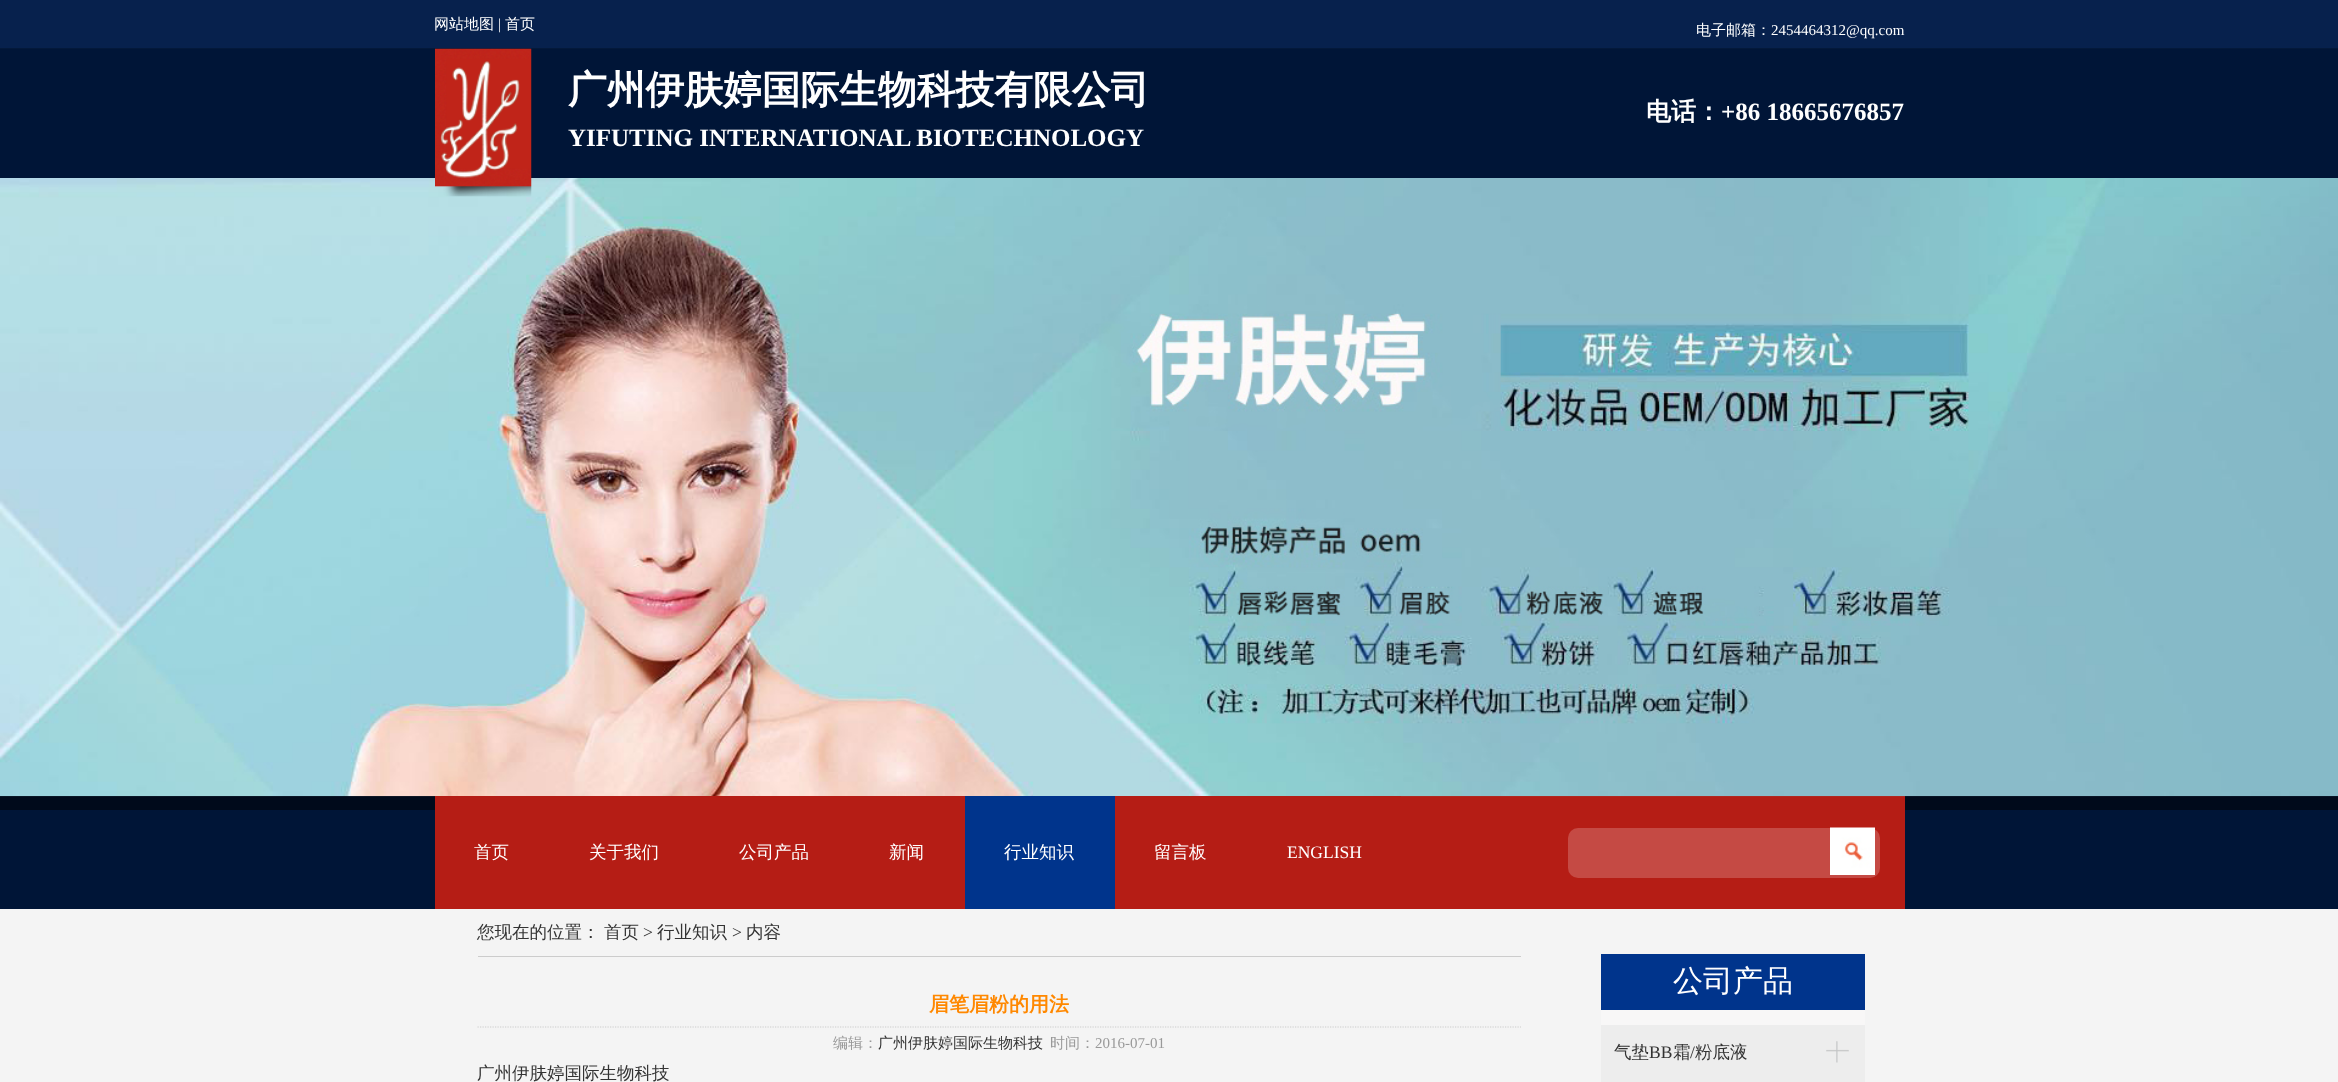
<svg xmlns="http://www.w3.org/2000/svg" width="2338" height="1082">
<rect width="100%" height="100%" fill="#001537"/>
<rect width="2338" height="48" fill="#07214d"/>
<text x="434" y="29" style="font-family:WenQuanYi Zen Hei;font-size:15px;font-weight:500;fill:#fff">网站地图</text>
<text x="498" y="29" style="font-family:Liberation Serif;font-size:15px;fill:#fff">|</text>
<text x="505" y="29" style="font-family:WenQuanYi Zen Hei;font-size:15px;font-weight:500;fill:#fff">首页</text>
<text x="1696" y="35" style="font-family:WenQuanYi Zen Hei;font-size:15px;font-weight:500;fill:#fff">电子邮箱：</text>
<text x="1771" y="35" style="font-family:Liberation Serif;font-size:15px;fill:#fff">2454464312@qq.com</text>
<rect y="48" width="2338" height="1" fill="#04193a"/>
<rect y="796" width="2338" height="14" fill="#000a1b"/>
<rect x="1401" y="796" width="504" height="113" fill="#b51d15"/>
<image x="0" y="178" width="2338" height="619" href="media/3.png"/>
<image x="435" y="48" width="97" height="149" href="media/1.png"/>
<image x="440" y="61" width="80" height="117" href="media/2.png"/>
<text x="568" y="103" style="font-family:WenQuanYi Zen Hei;font-size:38.75px;font-weight:bold;fill:#fff">广州伊肤婷国际生物科技有限公司</text>
<text x="568" y="146" style="font-family:Liberation Serif;font-size:25px;font-weight:bold;fill:#fff">YIFUTING INTERNATIONAL BIOTECHNOLOGY</text>
<text x="1646" y="120" style="font-family:WenQuanYi Zen Hei;font-size:25px;font-weight:bold;fill:#fff">电话：</text>
<text x="1721" y="120" style="font-family:Liberation Serif;font-size:25px;font-weight:bold;fill:#fff">+86 18665676857</text>
<rect x="435" y="796" width="530" height="113" fill="#b51d15"/>
<text x="474" y="858" style="font-family:WenQuanYi Zen Hei;font-size:17.5px;font-weight:500;fill:#fff">首页</text>
<text x="589" y="858" style="font-family:WenQuanYi Zen Hei;font-size:17.5px;font-weight:500;fill:#fff">关于我们</text>
<text x="739" y="858" style="font-family:WenQuanYi Zen Hei;font-size:17.5px;font-weight:500;fill:#fff">公司产品</text>
<text x="889" y="858" style="font-family:WenQuanYi Zen Hei;font-size:17.5px;font-weight:500;fill:#fff">新闻</text>
<rect x="965" y="796" width="150" height="113" fill="#00348c"/>
<text x="1004" y="858" style="font-family:WenQuanYi Zen Hei;font-size:17.5px;font-weight:500;fill:#fff">行业知识</text>
<rect x="1115" y="796" width="286" height="113" fill="#b51d15"/>
<text x="1154" y="858" style="font-family:WenQuanYi Zen Hei;font-size:17.5px;font-weight:500;fill:#fff">留言板</text>
<text x="1287" y="858" style="font-family:Liberation Serif;font-size:17.5px;fill:#fff">ENGLISH</text>
<rect x="1568" y="828" width="312" height="50" rx="10" fill="#c54a44"/>
<image x="1830" y="827" width="45" height="48" href="media/4.png"/>
<rect y="909" width="2338" height="173" fill="#f4f4f4"/>
<rect x="478" y="956" width="1043" height="1" fill="#ccc"/>
<text x="477" y="938" style="font-family:WenQuanYi Zen Hei;font-size:17.5px;font-weight:500;fill:#333">您现在的位置：</text>
<text x="604" y="938" style="font-family:WenQuanYi Zen Hei;font-size:17.5px;font-weight:500;fill:#333">首页</text>
<text x="643" y="938" style="font-family:Liberation Serif;font-size:17.5px;fill:#333">&gt;</text>
<text x="657" y="938" style="font-family:WenQuanYi Zen Hei;font-size:17.5px;font-weight:500;fill:#333">行业知识</text>
<text x="732" y="938" style="font-family:Liberation Serif;font-size:17.5px;fill:#333">&gt;</text>
<text x="746" y="938" style="font-family:WenQuanYi Zen Hei;font-size:17.5px;font-weight:500;fill:#333">内容</text>
<path d="M477.5 1027h1043.5" fill="none" stroke="#ccc" stroke-width="1.2" stroke-dasharray="1.25 1.25"/>
<text x="929" y="1011" style="font-family:WenQuanYi Zen Hei;font-size:20px;font-weight:bold;fill:#f80">眉笔眉粉的用法</text>
<text x="833" y="1048" style="font-family:WenQuanYi Zen Hei;font-size:15px;font-weight:500;fill:#999">编辑：</text>
<text x="878" y="1048" style="font-family:WenQuanYi Zen Hei;font-size:15px;font-weight:500;fill:#333">广州伊肤婷国际生物科技</text>
<text x="1050" y="1048" style="font-family:WenQuanYi Zen Hei;font-size:15px;font-weight:500;fill:#999">时间：</text>
<text x="1095" y="1048" style="font-family:Liberation Serif;font-size:15px;fill:#999">2016-07-01</text>
<text x="477" y="1079" style="font-family:WenQuanYi Zen Hei;font-size:17.5px;font-weight:500;fill:#333">广州伊肤婷国际生物科技</text>
<rect x="1601" y="954" width="264" height="56" fill="#00348c"/>
<text x="1673" y="991" style="font-family:WenQuanYi Zen Hei;font-size:30px;font-weight:500;fill:#fff">公司产品</text>
<rect x="1601" y="1010" width="264" height="15" fill="#f8f7f7"/>
<rect x="1601" y="1025" width="264" height="57" fill="#ededed"/>
<image x="1826" y="1041" width="23" height="22" href="media/5.png"/>
<text x="1614" y="1058" style="font-family:WenQuanYi Zen Hei;font-size:17.5px;font-weight:500;fill:#333">气垫</text>
<text x="1649" y="1058" style="font-family:Liberation Serif;font-size:17.5px;fill:#333">BB</text>
<text x="1673" y="1058" style="font-family:WenQuanYi Zen Hei;font-size:17.5px;font-weight:500;fill:#333">霜</text>
<text x="1690" y="1058" style="font-family:Liberation Serif;font-size:17.5px;fill:#333">/</text>
<text x="1695" y="1058" style="font-family:WenQuanYi Zen Hei;font-size:17.5px;font-weight:500;fill:#333">粉底液</text>
</svg>
